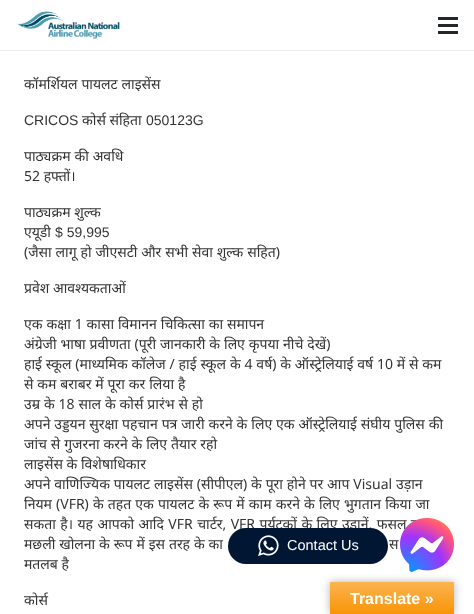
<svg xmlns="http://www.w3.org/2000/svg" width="474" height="614">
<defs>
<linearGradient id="g1" gradientUnits="userSpaceOnUse" x1="392" y1="582" x2="392" y2="614"><stop offset="0" stop-color="#fbb450"/><stop offset="1" stop-color="#f89406"/></linearGradient>
</defs>
<rect width="100%" height="100%" fill="#fff"/>
<rect y="50" width="474" height="1" fill="#ebebeb"/>
<image x="17" y="11" width="103" height="28" href="media/1.png"/>
<rect x="438" y="24" width="20" height="3" fill="#25282b"/>
<rect x="438" y="17" width="20" height="3" fill="#25282b"/>
<rect x="438" y="31" width="20" height="3" fill="#25282b"/>
<text x="24" y="89" word-spacing="0.25" style="font-family:Noto Sans;font-size:14px;fill:#333">कॉमर्शियल पायलट लाइसेंस</text>
<text x="24" y="125" style="font-family:Liberation Sans;font-size:14px;fill:#333">CRICOS</text>
<text x="82" y="125" style="font-family:Noto Sans;font-size:14px;fill:#333">कोर्स संहिता</text>
<text x="146" y="125" style="font-family:Liberation Sans;font-size:14px;fill:#333">050123G</text>
<text x="24" y="161" word-spacing="0.25" style="font-family:Noto Sans;font-size:14px;fill:#333">पाठ्यक्रम की अवधि</text>
<text x="24" y="181" style="font-family:Noto Sans;font-size:14px;fill:#333">52 हफ्तों।</text>
<text x="24" y="217" style="font-family:Noto Sans;font-size:14px;fill:#333">पाठ्यक्रम शुल्क</text>
<text x="24" y="237" style="font-family:Noto Sans;font-size:14px;fill:#333">एयूडी</text>
<text x="55" y="237" style="font-family:Liberation Sans;font-size:14px;fill:#333">$ 59,995</text>
<text x="24" y="257" word-spacing="0.25" style="font-family:Noto Sans;font-size:14px;fill:#333">(जैसा लागू हो जीएसटी और सभी सेवा शुल्क सहित)</text>
<text x="24" y="293" style="font-family:Noto Sans;font-size:14px;fill:#333">प्रवेश आवश्यकताओं</text>
<text x="24" y="329" word-spacing="0.25" style="font-family:Noto Sans;font-size:14px;fill:#333">एक कक्षा 1 कासा विमानन चिकित्सा का समापन</text>
<text x="24" y="349" word-spacing="0.25" style="font-family:Noto Sans;font-size:14px;fill:#333">अंग्रेजी भाषा प्रवीणता (पूरी जानकारी के लिए कृपया नीचे देखें)</text>
<text x="24" y="369" word-spacing="0.2" style="font-family:Noto Sans;font-size:14px;fill:#333">हाई स्कूल (माध्यमिक कॉलेज / हाई स्कूल के 4 वर्ष) के ऑस्ट्रेलियाई वर्ष 10 में से कम</text>
<text x="24" y="389" word-spacing="0.25" style="font-family:Noto Sans;font-size:14px;fill:#333">से कम बराबर में पूरा कर लिया है</text>
<text x="24" y="409" word-spacing="0.25" style="font-family:Noto Sans;font-size:14px;fill:#333">उम्र के 18 साल के कोर्स प्रारंभ से हो</text>
<text x="24" y="429" word-spacing="0.25" style="font-family:Noto Sans;font-size:14px;fill:#333">अपने उड्डयन सुरक्षा पहचान पत्र जारी करने के लिए एक ऑस्ट्रेलियाई संघीय पुलिस की</text>
<text x="24" y="449" word-spacing="0.25" style="font-family:Noto Sans;font-size:14px;fill:#333">जांच से गुजरना करने के लिए तैयार रहो</text>
<text x="24" y="469" style="font-family:Noto Sans;font-size:14px;fill:#333">लाइसेंस के विशेषाधिकार</text>
<text x="24" y="489" word-spacing="0.25" style="font-family:Noto Sans;font-size:14px;fill:#333">अपने वाणिज्यिक पायलट लाइसेंस (सीपीएल) के पूरा होने पर आप Visual उड़ान</text>
<text x="24" y="509" word-spacing="0.5" style="font-family:Noto Sans;font-size:14px;fill:#333">नियम (VFR) के तहत एक पायलट के रूप में काम करने के लिए भुगतान किया जा</text>
<text x="24" y="529" word-spacing="0.8" style="font-family:Noto Sans;font-size:14px;fill:#333">सकता है। यह आपको आदि VFR चार्टर, VFR पर्यटकों के लिए उड़ानें, फसल ठ</text>
<text x="24" y="549" word-spacing="0.25" style="font-family:Noto Sans;font-size:14px;fill:#333">मछली खोलना के रूप में इस तरह के का</text>
<text x="389" y="549" word-spacing="0.25" style="font-family:Noto Sans;font-size:14px;fill:#333">स</text>
<text x="24" y="569" style="font-family:Noto Sans;font-size:14px;fill:#333">मतलब है</text>
<text x="24" y="605" style="font-family:Noto Sans;font-size:14px;fill:#333">कोर्स</text>
<rect x="228" y="528" width="160" height="36" rx="18" fill="#001633"/>
<image x="258" y="535" width="21" height="21" href="media/2.png"/>
<text x="287" y="550" style="font-family:Liberation Sans;font-size:14.5px;fill:#fff">Contact Us</text>
<image x="400" y="518" width="54" height="54" href="media/3.png"/>
<rect x="330" y="582" width="124" height="32" fill="#0000004d" filter="blur(4.5px)"/>
<rect x="330" y="582" width="124" height="32" fill="url(#g1)"/>
<text x="350" y="604" style="font-family:Liberation Sans;font-size:16px;font-weight:bold;fill:#fff">Translate »</text>
</svg>
